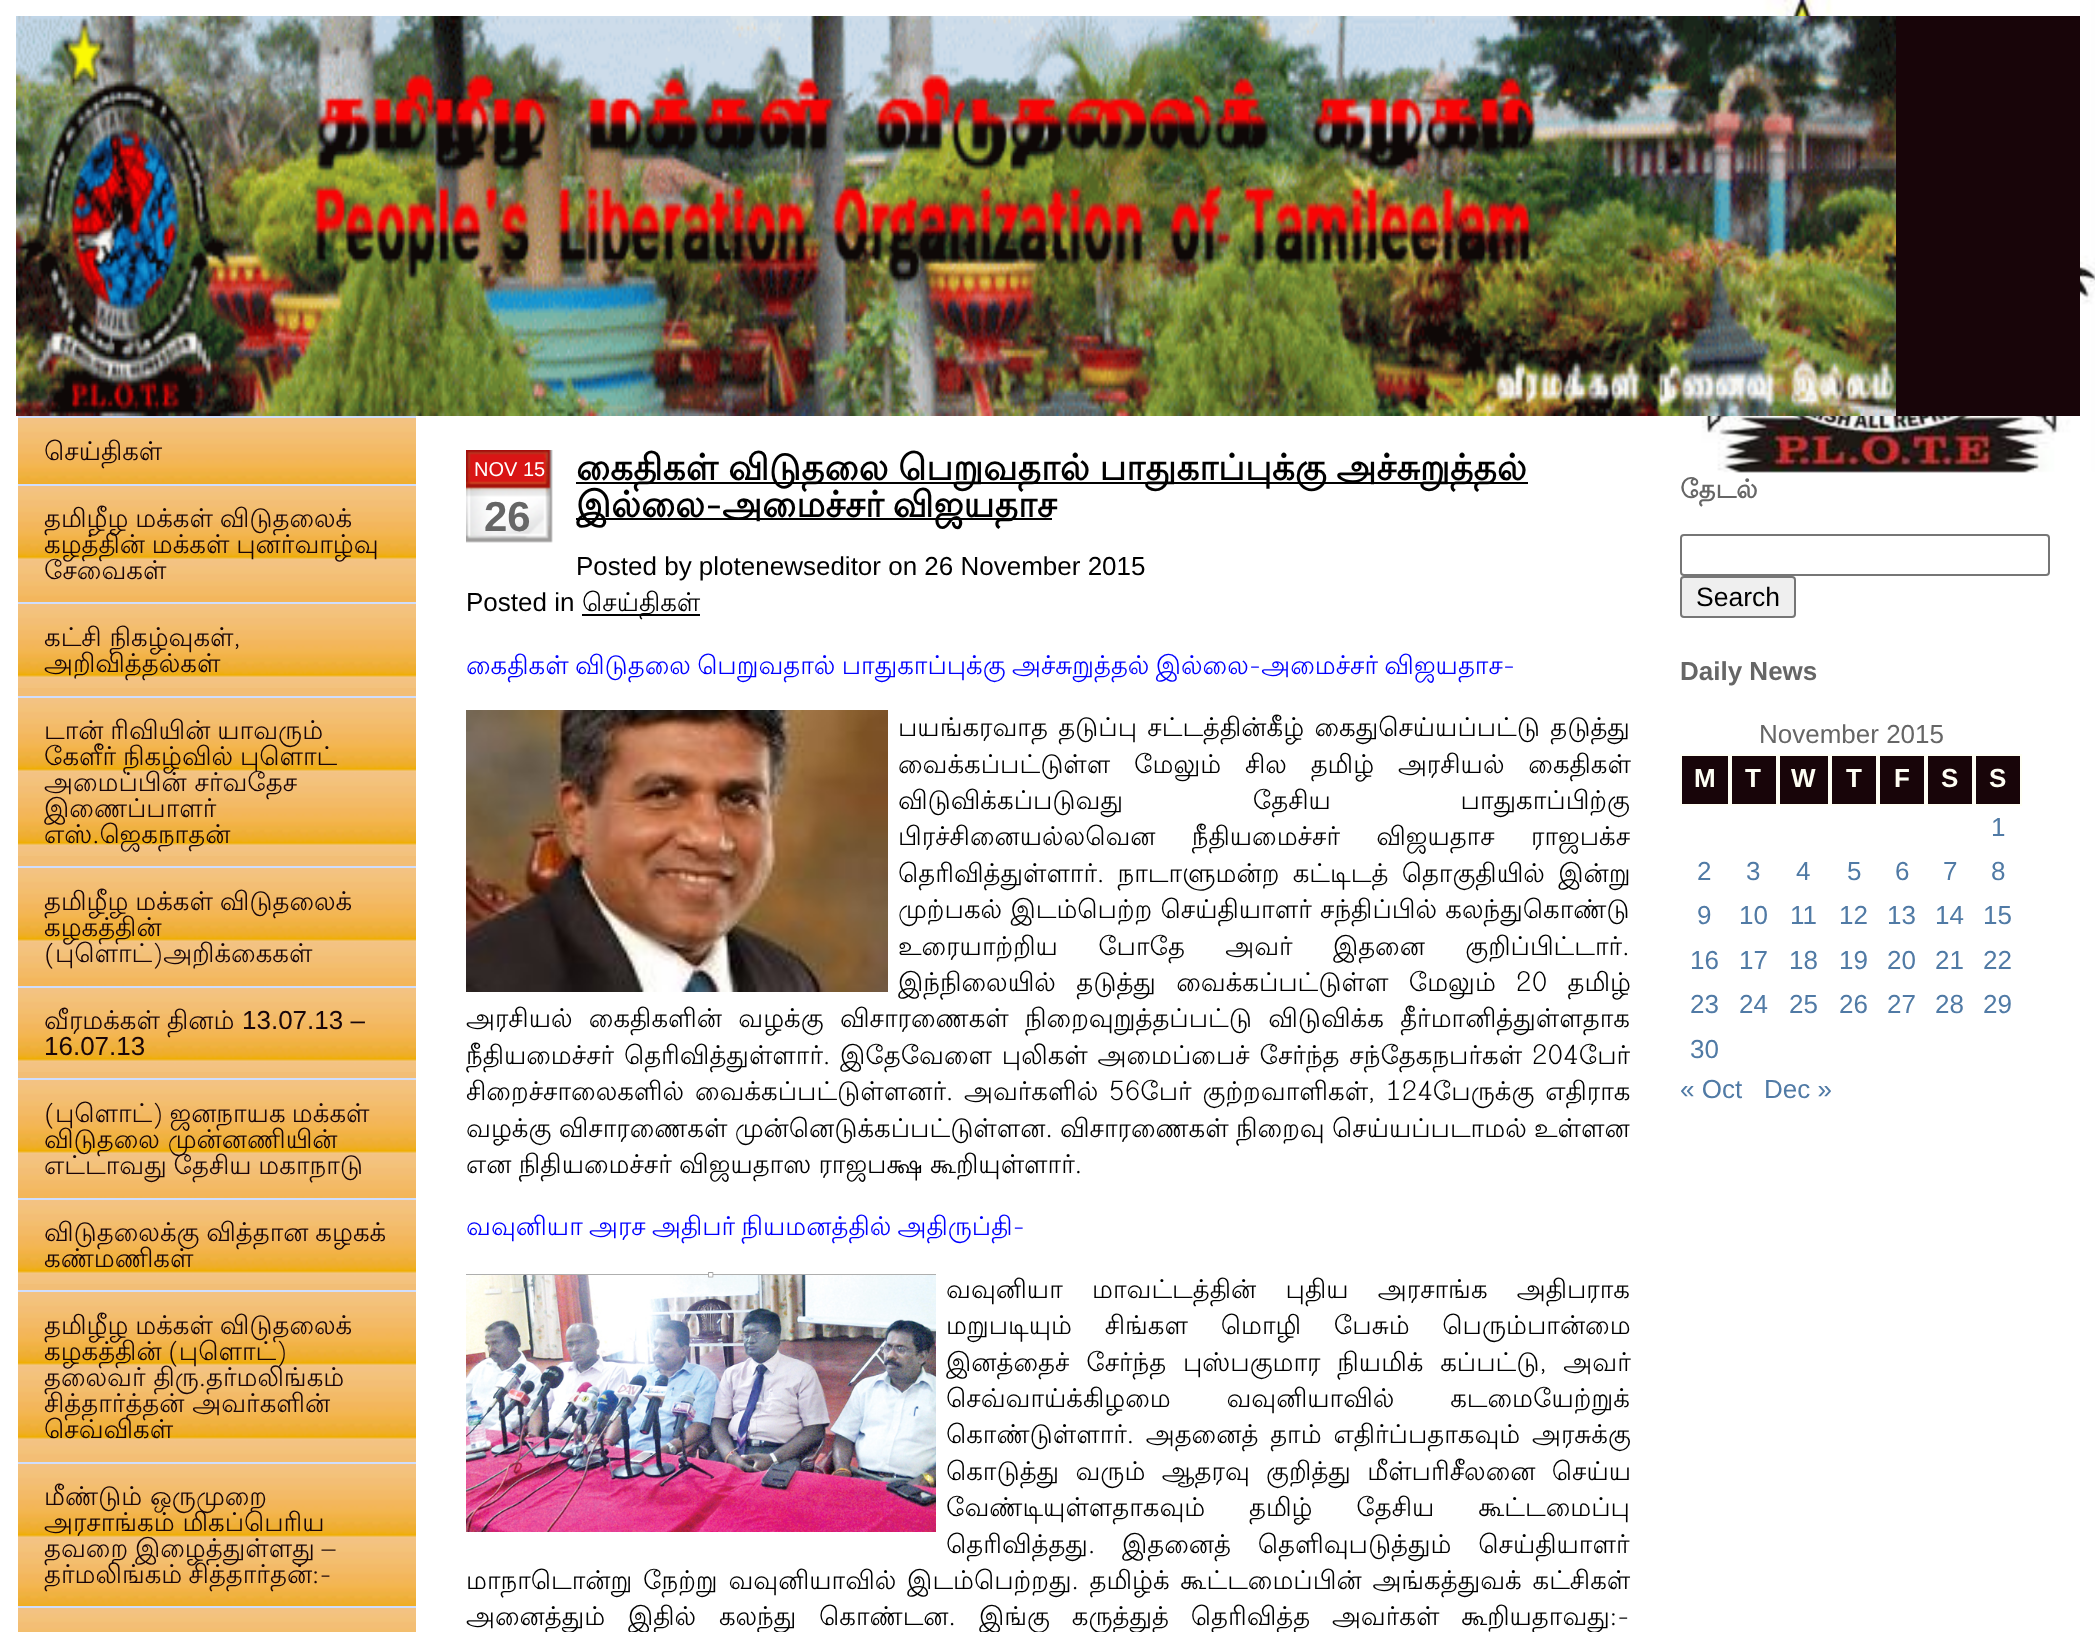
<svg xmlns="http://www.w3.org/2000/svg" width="2095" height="1632">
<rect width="100%" height="100%" fill="#fff"/>
<image x="1669" y="0" width="426" height="473" href="media/1.png"/>
<rect x="1896" y="16" width="184" height="400" fill="#180509"/>
<image x="16" y="16" width="1880" height="400" href="media/2.png"/>
<image x="18" y="418" width="398" height="66" href="media/3.png"/>
<rect x="16" y="416" width="400" height="2" fill="#cfdeff"/>
<rect x="16" y="416" width="2" height="2" fill="#fff"/>
<text x="44" y="460" style="font-family:Lohit Tamil;font-size:26px;fill:#180509">செய்திகள்</text>
<image x="18" y="486" width="398" height="116" href="media/4.png"/>
<rect x="16" y="484" width="400" height="2" fill="#cfdeff"/>
<rect x="16" y="484" width="2" height="2" fill="#fff"/>
<text x="44" y="527" word-spacing="-1" style="font-family:Lohit Tamil;font-size:26px;fill:#180509">தமிழீழ மக்கள் விடுதலைக்</text>
<text x="44" y="553" word-spacing="-1" style="font-family:Lohit Tamil;font-size:26px;fill:#180509">கழத்தின் மக்கள் புனர்வாழ்வு</text>
<text x="44" y="579" style="font-family:Lohit Tamil;font-size:26px;fill:#180509">சேவைகள்</text>
<rect x="18" y="688" width="398" height="8" fill="#f2be76"/>
<image x="18" y="604" width="398" height="84" href="media/5.png"/>
<rect x="16" y="602" width="400" height="2" fill="#cfdeff"/>
<rect x="16" y="602" width="2" height="2" fill="#fff"/>
<text x="44" y="646" style="font-family:Lohit Tamil;font-size:26px;fill:#180509">கட்சி நிகழ்வுகள்,</text>
<text x="44" y="672" style="font-family:Lohit Tamil;font-size:26px;fill:#180509">அறிவித்தல்கள்</text>
<rect x="18" y="856" width="398" height="10" fill="#f2be76"/>
<image x="18" y="698" width="398" height="158" href="media/6.png"/>
<rect x="16" y="696" width="400" height="2" fill="#cfdeff"/>
<rect x="16" y="696" width="2" height="2" fill="#fff"/>
<text x="44" y="739" word-spacing="-1" style="font-family:Lohit Tamil;font-size:26px;fill:#180509">டான் ரிவியின் யாவரும்</text>
<text x="44" y="765" word-spacing="-1" style="font-family:Lohit Tamil;font-size:26px;fill:#180509">கேளீர் நிகழ்வில் புளொட்</text>
<text x="44" y="791" style="font-family:Lohit Tamil;font-size:26px;fill:#180509">அமைப்பின் சர்வதேச</text>
<text x="44" y="817" style="font-family:Lohit Tamil;font-size:26px;fill:#180509">இணைப்பாளர்</text>
<text x="44" y="843" style="font-family:Lohit Tamil;font-size:26px;fill:#180509">எஸ்.ஜெகநாதன்</text>
<image x="18" y="868" width="398" height="118" href="media/7.png"/>
<rect x="16" y="866" width="400" height="2" fill="#cfdeff"/>
<rect x="16" y="866" width="2" height="2" fill="#fff"/>
<text x="44" y="910" word-spacing="-1" style="font-family:Lohit Tamil;font-size:26px;fill:#180509">தமிழீழ மக்கள் விடுதலைக்</text>
<text x="44" y="936" style="font-family:Lohit Tamil;font-size:26px;fill:#180509">கழகத்தின்</text>
<text x="44" y="962" style="font-family:Lohit Tamil;font-size:26px;fill:#180509">(புளொட்)அறிக்கைகள்</text>
<rect x="18" y="1072" width="398" height="6" fill="#f2be76"/>
<image x="18" y="988" width="398" height="84" href="media/5.png"/>
<rect x="16" y="986" width="400" height="2" fill="#cfdeff"/>
<rect x="16" y="986" width="2" height="2" fill="#fff"/>
<text x="44" y="1029" style="font-family:Lohit Tamil;font-size:26px;fill:#180509">வீரமக்கள்</text>
<text x="167" y="1029" style="font-family:Lohit Tamil;font-size:26px;fill:#180509">தினம்</text>
<text x="242" y="1029" style="font-family:Liberation Sans;font-size:26px;fill:#180509">13.07.13 –</text>
<text x="44" y="1055" style="font-family:Liberation Sans;font-size:26px;fill:#180509">16.07.13</text>
<image x="18" y="1080" width="398" height="118" href="media/7.png"/>
<rect x="16" y="1078" width="400" height="2" fill="#cfdeff"/>
<rect x="16" y="1078" width="2" height="2" fill="#fff"/>
<text x="44" y="1122" word-spacing="-1.5" style="font-family:Lohit Tamil;font-size:26px;fill:#180509">(புளொட்) ஜனநாயக மக்கள்</text>
<text x="44" y="1148" style="font-family:Lohit Tamil;font-size:26px;fill:#180509">விடுதலை முன்னணியின்</text>
<text x="44" y="1174" word-spacing="-1" style="font-family:Lohit Tamil;font-size:26px;fill:#180509">எட்டாவது தேசிய மகாநாடு</text>
<rect x="18" y="1284" width="398" height="6" fill="#f2be76"/>
<image x="18" y="1200" width="398" height="84" href="media/5.png"/>
<rect x="16" y="1198" width="400" height="2" fill="#cfdeff"/>
<rect x="16" y="1198" width="2" height="2" fill="#fff"/>
<text x="44" y="1241" word-spacing="-1" style="font-family:Lohit Tamil;font-size:26px;fill:#180509">விடுதலைக்கு வித்தான கழகக்</text>
<text x="44" y="1267" style="font-family:Lohit Tamil;font-size:26px;fill:#180509">கண்மணிகள்</text>
<image x="18" y="1292" width="398" height="170" href="media/8.png"/>
<rect x="16" y="1290" width="400" height="2" fill="#cfdeff"/>
<rect x="16" y="1290" width="2" height="2" fill="#fff"/>
<text x="44" y="1334" word-spacing="-1" style="font-family:Lohit Tamil;font-size:26px;fill:#180509">தமிழீழ மக்கள் விடுதலைக்</text>
<text x="44" y="1360" word-spacing="-1.5" style="font-family:Lohit Tamil;font-size:26px;fill:#180509">கழகத்தின் (புளொட்)</text>
<text x="44" y="1386" style="font-family:Lohit Tamil;font-size:26px;fill:#180509">தலைவர் திரு.தர்மலிங்கம்</text>
<text x="44" y="1412" style="font-family:Lohit Tamil;font-size:26px;fill:#180509">சித்தார்த்தன் அவர்களின்</text>
<text x="44" y="1438" style="font-family:Lohit Tamil;font-size:26px;fill:#180509">செவ்விகள்</text>
<image x="18" y="1464" width="398" height="142" href="media/9.png"/>
<rect x="16" y="1462" width="400" height="2" fill="#cfdeff"/>
<rect x="16" y="1462" width="2" height="2" fill="#fff"/>
<text x="44" y="1505" style="font-family:Lohit Tamil;font-size:26px;fill:#180509">மீண்டும் ஒருமுறை</text>
<text x="44" y="1531" style="font-family:Lohit Tamil;font-size:26px;fill:#180509">அரசாங்கம் மிகப்பெரிய</text>
<text x="44" y="1557" word-spacing="-1" style="font-family:Lohit Tamil;font-size:26px;fill:#180509">தவறை இழைத்துள்ளது –</text>
<text x="44" y="1583" word-spacing="-1.5" style="font-family:Lohit Tamil;font-size:26px;fill:#180509">தர்மலிங்கம் சித்தார்தன்:-</text>
<image x="18" y="1608" width="398" height="24" href="media/10.png"/>
<rect x="16" y="1606" width="400" height="2" fill="#cfdeff"/>
<rect x="16" y="1606" width="2" height="2" fill="#fff"/>
<rect x="576" y="482" width="952" height="2" fill="#000"/>
<text x="576" y="480" word-spacing="-1" style="font-family:Lohit Tamil;font-size:36px;font-weight:bold;fill:#000">கைதிகள் விடுதலை பெறுவதால் பாதுகாப்புக்கு அச்சுறுத்தல்</text>
<rect x="576" y="518" width="476" height="2" fill="#000"/>
<text x="576" y="517" word-spacing="-2" style="font-family:Lohit Tamil;font-size:36px;font-weight:bold;fill:#000">இல்லை-அமைச்சர் விஜயதாச</text>
<text x="576" y="575" style="font-family:Liberation Sans;font-size:26px;fill:#000">Posted by plotenewseditor on 26 November 2015</text>
<text x="466" y="611" style="font-family:Liberation Sans;font-size:26px;fill:#000">Posted in</text>
<rect x="582" y="614" width="118" height="2" fill="#000"/>
<text x="582" y="611" style="font-family:Lohit Tamil;font-size:26px;fill:#000">செய்திகள்</text>
<image x="466" y="450" width="87" height="93" href="media/11.png"/>
<text x="474" y="476" style="font-family:Liberation Sans;font-size:20px;fill:#fff">NOV 15</text>
<text x="484" y="531" style="font-family:Liberation Sans;font-size:42px;font-weight:bold;fill:#666">26</text>
<text x="466" y="674" word-spacing="-1.5" style="font-family:Lohit Tamil;font-size:26px;fill:#00f">கைதிகள் விடுதலை பெறுவதால் பாதுகாப்புக்கு அச்சுறுத்தல் இல்லை-அமைச்சர் விஜயதாச-</text>
<image x="466" y="710" width="422" height="282" href="media/12.png"/>
<text x="898" y="736" word-spacing="2.5" style="font-family:Lohit Tamil;font-size:26px;fill:#000">பயங்கரவாத தடுப்பு சட்டத்தின்கீழ் கைதுசெய்யப்பட்டு தடுத்து</text>
<text x="898" y="773" word-spacing="16" style="font-family:Lohit Tamil;font-size:26px;fill:#000">வைக்கப்பட்டுள்ள மேலும் சில தமிழ் அரசியல் கைதிகள்</text>
<text x="898" y="809" word-spacing="122" style="font-family:Lohit Tamil;font-size:26px;fill:#000">விடுவிக்கப்படுவது தேசிய பாதுகாப்பிற்கு</text>
<text x="898" y="845" word-spacing="28.5" style="font-family:Lohit Tamil;font-size:26px;fill:#000">பிரச்சினையல்லவென நீதியமைச்சர் விஜயதாச ராஜபக்ச</text>
<text x="898" y="882" word-spacing="5.5" style="font-family:Lohit Tamil;font-size:26px;fill:#000">தெரிவித்துள்ளார். நாடாளுமன்ற கட்டிடத் தொகுதியில் இன்று</text>
<text x="898" y="918" word-spacing="0.5" style="font-family:Lohit Tamil;font-size:26px;fill:#000">முற்பகல் இடம்பெற்ற செய்தியாளர் சந்திப்பில் கலந்துகொண்டு</text>
<text x="898" y="955" word-spacing="32.5" style="font-family:Lohit Tamil;font-size:26px;fill:#000">உரையாற்றிய போதே அவர் இதனை குறிப்பிட்டார்.</text>
<text x="898" y="991" word-spacing="12.5" style="font-family:Lohit Tamil;font-size:26px;fill:#000">இந்நிலையில் தடுத்து வைக்கப்பட்டுள்ள மேலும் 20 தமிழ்</text>
<text x="466" y="1027" word-spacing="8.5" style="font-family:Lohit Tamil;font-size:26px;fill:#000">அரசியல் கைதிகளின் வழக்கு விசாரணைகள் நிறைவுறுத்தப்பட்டு விடுவிக்க தீர்மானித்துள்ளதாக</text>
<text x="466" y="1064" word-spacing="2" style="font-family:Lohit Tamil;font-size:26px;fill:#000">நீதியமைச்சர் தெரிவித்துள்ளார். இதேவேளை புலிகள் அமைப்பைச் சேர்ந்த சந்தேகநபர்கள் 204பேர்</text>
<text x="466" y="1100" word-spacing="3" style="font-family:Lohit Tamil;font-size:26px;fill:#000">சிறைச்சாலைகளில் வைக்கப்பட்டுள்ளனர். அவர்களில் 56பேர் குற்றவாளிகள், 124பேருக்கு எதிராக</text>
<text x="466" y="1137" word-spacing="-0.5" style="font-family:Lohit Tamil;font-size:26px;fill:#000">வழக்கு விசாரணைகள் முன்னெடுக்கப்பட்டுள்ளன. விசாரணைகள் நிறைவு செய்யப்படாமல் உள்ளன</text>
<text x="466" y="1173" word-spacing="-0.5" style="font-family:Lohit Tamil;font-size:26px;fill:#000">என நிதியமைச்சர் விஜயதாஸ ராஜபக்ஷ கூறியுள்ளார்.</text>
<text x="466" y="1235" word-spacing="-1.5" style="font-family:Lohit Tamil;font-size:26px;fill:#00f">வவுனியா அரச அதிபர் நியமனத்தில் அதிருப்தி-</text>
<image x="466" y="1272" width="470" height="260" href="media/13.png"/>
<text x="946" y="1298" word-spacing="21.5" style="font-family:Lohit Tamil;font-size:26px;fill:#000">வவுனியா மாவட்டத்தின் புதிய அரசாங்க அதிபராக</text>
<text x="946" y="1334" word-spacing="25" style="font-family:Lohit Tamil;font-size:26px;fill:#000">மறுபடியும் சிங்கள மொழி பேசும் பெரும்பான்மை</text>
<text x="946" y="1371" word-spacing="9" style="font-family:Lohit Tamil;font-size:26px;fill:#000">இனத்தைச் சேர்ந்த புஸ்பகுமார நியமிக் கப்பட்டு, அவர்</text>
<text x="946" y="1407" word-spacing="48" style="font-family:Lohit Tamil;font-size:26px;fill:#000">செவ்வாய்க்கிழமை வவுனியாவில் கடமையேற்றுக்</text>
<text x="946" y="1443" word-spacing="4" style="font-family:Lohit Tamil;font-size:26px;fill:#000">கொண்டுள்ளார். அதனைத் தாம் எதிர்ப்பதாகவும் அரசுக்கு</text>
<text x="946" y="1480" word-spacing="8.5" style="font-family:Lohit Tamil;font-size:26px;fill:#000">கொடுத்து வரும் ஆதரவு குறித்து மீள்பரிசீலனை செய்ய</text>
<text x="946" y="1516" word-spacing="36" style="font-family:Lohit Tamil;font-size:26px;fill:#000">வேண்டியுள்ளதாகவும் தமிழ் தேசிய கூட்டமைப்பு</text>
<text x="946" y="1553" style="font-family:Lohit Tamil;font-size:26px;fill:#000">தெரிவித்தது.</text>
<text x="1122" y="1553" word-spacing="19" style="font-family:Lohit Tamil;font-size:26px;fill:#000">இதனைத் தெளிவுபடுத்தும் செய்தியாளர்</text>
<text x="466" y="1589" word-spacing="3" style="font-family:Lohit Tamil;font-size:26px;fill:#000">மாநாடொன்று நேற்று வவுனியாவில் இடம்பெற்றது. தமிழ்க் கூட்டமைப்பின் அங்கத்துவக் கட்சிகள்</text>
<text x="466" y="1625" word-spacing="15" style="font-family:Lohit Tamil;font-size:26px;fill:#000">அனைத்தும் இதில் கலந்து கொண்டன.</text>
<text x="979" y="1625" word-spacing="14" style="font-family:Lohit Tamil;font-size:26px;fill:#000">இங்கு கருத்துத் தெரிவித்த அவர்கள் கூறியதாவது:-</text>
<text x="1680" y="498" style="font-family:Lohit Tamil;font-size:26px;font-weight:bold;fill:#666">தேடல்</text>
<rect x="1681" y="535" width="368" height="40" rx="3" fill="none" stroke="#767676" stroke-width="2"/>
<rect x="1681" y="577" width="114" height="40" rx="3" fill="#efefef" stroke="#767676" stroke-width="2"/>
<text x="1696" y="606" style="font-family:Liberation Sans;font-size:26.5px;fill:#000">Search</text>
<text x="1680" y="680" style="font-family:Liberation Sans;font-size:26px;font-weight:bold;fill:#666">Daily News</text>
<text x="1759" y="743" style="font-family:Liberation Sans;font-size:26px;fill:#666">November 2015</text>
<rect x="1681" y="755" width="48" height="50" fill="#180509" stroke="#fffff4" stroke-width="2"/>
<text x="1694" y="787" style="font-family:Liberation Sans;font-size:26px;font-weight:bold;fill:#fffff4">M</text>
<rect x="1731" y="755" width="46" height="50" fill="#180509" stroke="#fffff4" stroke-width="2"/>
<text x="1745" y="787" style="font-family:Liberation Sans;font-size:26px;font-weight:bold;fill:#fffff4">T</text>
<rect x="1779" y="755" width="50" height="50" fill="#180509" stroke="#fffff4" stroke-width="2"/>
<text x="1791" y="787" style="font-family:Liberation Sans;font-size:26px;font-weight:bold;fill:#fffff4">W</text>
<rect x="1831" y="755" width="46" height="50" fill="#180509" stroke="#fffff4" stroke-width="2"/>
<text x="1846" y="787" style="font-family:Liberation Sans;font-size:26px;font-weight:bold;fill:#fffff4">T</text>
<rect x="1879" y="755" width="46" height="50" fill="#180509" stroke="#fffff4" stroke-width="2"/>
<text x="1894" y="787" style="font-family:Liberation Sans;font-size:26px;font-weight:bold;fill:#fffff4">F</text>
<rect x="1927" y="755" width="46" height="50" fill="#180509" stroke="#fffff4" stroke-width="2"/>
<text x="1941" y="787" style="font-family:Liberation Sans;font-size:26px;font-weight:bold;fill:#fffff4">S</text>
<rect x="1975" y="755" width="46" height="50" fill="#180509" stroke="#fffff4" stroke-width="2"/>
<text x="1989" y="787" style="font-family:Liberation Sans;font-size:26px;font-weight:bold;fill:#fffff4">S</text>
<text x="1991" y="836" style="font-family:Liberation Sans;font-size:26px;fill:#507aa5">1</text>
<text x="1697" y="880" style="font-family:Liberation Sans;font-size:26px;fill:#507aa5">2</text>
<text x="1746" y="880" style="font-family:Liberation Sans;font-size:26px;fill:#507aa5">3</text>
<text x="1796" y="880" style="font-family:Liberation Sans;font-size:26px;fill:#507aa5">4</text>
<text x="1847" y="880" style="font-family:Liberation Sans;font-size:26px;fill:#507aa5">5</text>
<text x="1895" y="880" style="font-family:Liberation Sans;font-size:26px;fill:#507aa5">6</text>
<text x="1943" y="880" style="font-family:Liberation Sans;font-size:26px;fill:#507aa5">7</text>
<text x="1991" y="880" style="font-family:Liberation Sans;font-size:26px;fill:#507aa5">8</text>
<text x="1697" y="924" style="font-family:Liberation Sans;font-size:26px;fill:#507aa5">9</text>
<text x="1739" y="924" style="font-family:Liberation Sans;font-size:26px;fill:#507aa5">10</text>
<text x="1790" y="924" style="font-family:Liberation Sans;font-size:26px;fill:#507aa5">11</text>
<text x="1839" y="924" style="font-family:Liberation Sans;font-size:26px;fill:#507aa5">12</text>
<text x="1887" y="924" style="font-family:Liberation Sans;font-size:26px;fill:#507aa5">13</text>
<text x="1935" y="924" style="font-family:Liberation Sans;font-size:26px;fill:#507aa5">14</text>
<text x="1983" y="924" style="font-family:Liberation Sans;font-size:26px;fill:#507aa5">15</text>
<text x="1690" y="969" style="font-family:Liberation Sans;font-size:26px;fill:#507aa5">16</text>
<text x="1739" y="969" style="font-family:Liberation Sans;font-size:26px;fill:#507aa5">17</text>
<text x="1789" y="969" style="font-family:Liberation Sans;font-size:26px;fill:#507aa5">18</text>
<text x="1839" y="969" style="font-family:Liberation Sans;font-size:26px;fill:#507aa5">19</text>
<text x="1887" y="969" style="font-family:Liberation Sans;font-size:26px;fill:#507aa5">20</text>
<text x="1935" y="969" style="font-family:Liberation Sans;font-size:26px;fill:#507aa5">21</text>
<text x="1983" y="969" style="font-family:Liberation Sans;font-size:26px;fill:#507aa5">22</text>
<text x="1690" y="1013" style="font-family:Liberation Sans;font-size:26px;fill:#507aa5">23</text>
<text x="1739" y="1013" style="font-family:Liberation Sans;font-size:26px;fill:#507aa5">24</text>
<text x="1789" y="1013" style="font-family:Liberation Sans;font-size:26px;fill:#507aa5">25</text>
<text x="1839" y="1013" style="font-family:Liberation Sans;font-size:26px;fill:#507aa5">26</text>
<text x="1887" y="1013" style="font-family:Liberation Sans;font-size:26px;fill:#507aa5">27</text>
<text x="1935" y="1013" style="font-family:Liberation Sans;font-size:26px;fill:#507aa5">28</text>
<text x="1983" y="1013" style="font-family:Liberation Sans;font-size:26px;fill:#507aa5">29</text>
<text x="1690" y="1058" style="font-family:Liberation Sans;font-size:26px;fill:#507aa5">30</text>
<text x="1680" y="1098" style="font-family:Liberation Sans;font-size:26px;fill:#507aa5">« Oct</text>
<text x="1764" y="1098" style="font-family:Liberation Sans;font-size:26px;fill:#507aa5">Dec »</text>
</svg>
